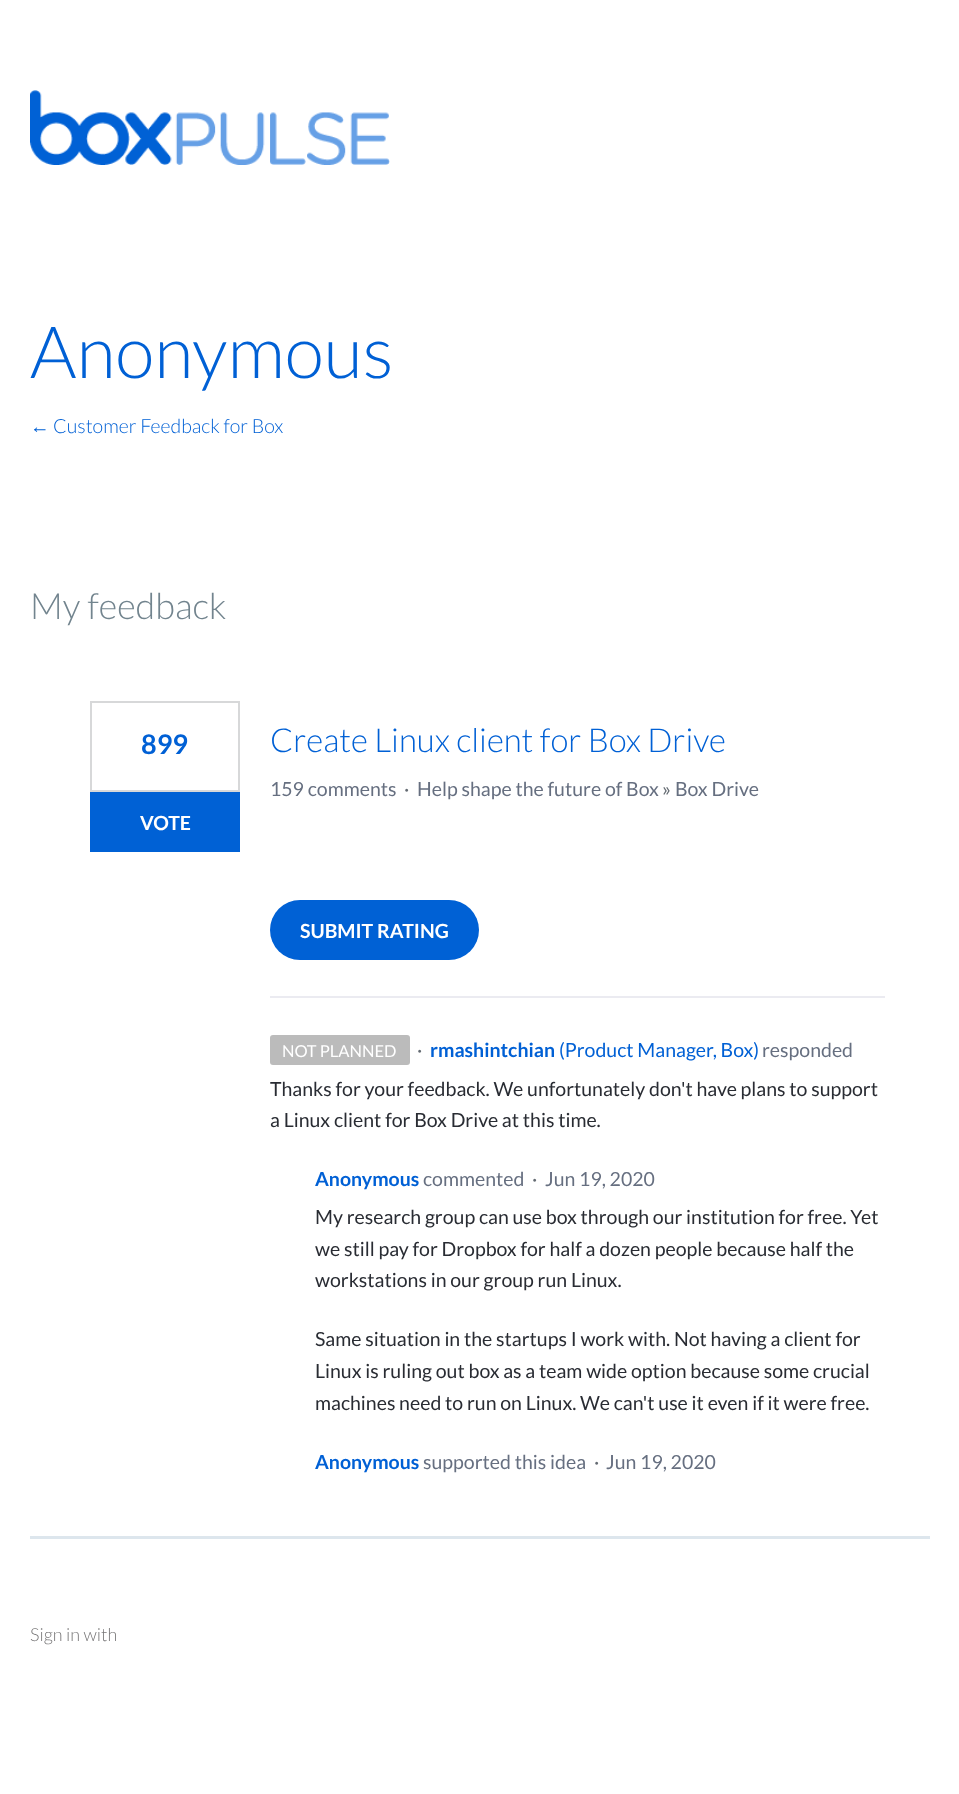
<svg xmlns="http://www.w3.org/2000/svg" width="959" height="1794">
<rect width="100%" height="100%" fill="#fff"/>
<image x="30" y="90" width="360" height="75" href="media/1.png"/>
<text x="30" y="378" style="font-family:Lato;font-size:72px;font-weight:300;fill:#0060d5">Anonymous</text>
<text x="30" y="433" style="font-family:Liberation Sans;font-size:19.5px;fill:#0060d5">←</text>
<text x="53" y="433" style="font-family:Lato;font-size:19.5px;font-weight:300;fill:#0060d5">Customer Feedback for Box</text>
<text x="30" y="619" style="font-family:Lato;font-size:36px;font-weight:300;fill:#72848e">My feedback</text>
<rect x="30" y="1536" width="900" height="3" fill="#dde6ed"/>
<rect x="91" y="702" width="148" height="89" fill="none" stroke="#d7d8d9" stroke-width="2"/>
<text x="141" y="754" style="font-family:Lato;font-size:27px;font-weight:bold;fill:#0060d5">899</text>
<rect x="90" y="792" width="150" height="60" fill="#0061d5"/>
<text x="140" y="830" style="font-family:Lato;font-size:19.5px;font-weight:bold;fill:#fff">VOTE</text>
<text x="270" y="752" style="font-family:Lato;font-size:33px;font-weight:300;fill:#0060d5">Create Linux client for Box Drive</text>
<text x="270" y="796" style="font-family:Lato;font-size:19.5px;fill:#666f80">159 comments</text>
<text x="404" y="796" style="font-family:Lato;font-size:19.5px;fill:#646b72">·</text>
<text x="417" y="796" style="font-family:Lato;font-size:19.5px;fill:#666f80">Help shape the future of Box</text>
<text x="662" y="796" style="font-family:Lato;font-size:19.5px;fill:#646b72">»</text>
<text x="675" y="796" style="font-family:Lato;font-size:19.5px;fill:#666f80">Box Drive</text>
<rect x="270" y="996" width="615" height="2" fill="#ebebf1"/>
<rect x="270" y="900" width="209" height="60" rx="30" fill="#0061d5"/>
<text x="300" y="938" style="font-family:Lato;font-size:19.5px;font-weight:bold;fill:#fff">SUBMIT RATING</text>
<rect x="270" y="1035" width="140" height="30" rx="3" fill="#bbb"/>
<text x="282" y="1057" style="font-family:Lato;font-size:16.5px;fill:#fff">NOT PLANNED</text>
<text x="417" y="1057" style="font-family:Lato;font-size:19.5px;fill:#646b72">·</text>
<text x="430" y="1057" style="font-family:Lato;font-size:19.5px;font-weight:bold;fill:#0060d5">rmashintchian</text>
<text x="559" y="1057" style="font-family:Lato;font-size:19.5px;fill:#0060d5">(Product Manager, Box)</text>
<text x="762" y="1057" style="font-family:Lato;font-size:19.5px;fill:#666f80">responded</text>
<text x="270" y="1096" style="font-family:Lato;font-size:19.5px;fill:#292c33">Thanks for your feedback. We unfortunately don't have plans to support</text>
<text x="270" y="1127" style="font-family:Lato;font-size:19.5px;fill:#292c33">a Linux client for Box Drive at this time.</text>
<text x="315" y="1186" style="font-family:Lato;font-size:19.5px;font-weight:bold;fill:#0060d5">Anonymous</text>
<text x="423" y="1186" style="font-family:Lato;font-size:19.5px;fill:#666f80">commented</text>
<text x="532" y="1186" style="font-family:Lato;font-size:19.5px;fill:#646b72">·</text>
<text x="545" y="1186" style="font-family:Lato;font-size:19.5px;fill:#666f80">Jun 19, 2020</text>
<text x="315" y="1224" style="font-family:Lato;font-size:19.5px;fill:#292c33">My research group can use box through our institution for free. Yet</text>
<text x="315" y="1256" style="font-family:Lato;font-size:19.5px;fill:#292c33">we still pay for Dropbox for half a dozen people because half the</text>
<text x="315" y="1287" style="font-family:Lato;font-size:19.5px;fill:#292c33">workstations in our group run Linux.</text>
<text x="315" y="1346" style="font-family:Lato;font-size:19.5px;fill:#292c33">Same situation in the startups I work with. Not having a client for</text>
<text x="315" y="1378" style="font-family:Lato;font-size:19.5px;fill:#292c33">Linux is ruling out box as a team wide option because some crucial</text>
<text x="315" y="1410" style="font-family:Lato;font-size:19.5px;fill:#292c33">machines need to run on Linux. We can't use it even if it were free.</text>
<text x="315" y="1469" style="font-family:Lato;font-size:19.5px;font-weight:bold;fill:#0060d5">Anonymous</text>
<text x="423" y="1469" style="font-family:Lato;font-size:19.5px;fill:#666f80">supported this idea</text>
<text x="594" y="1469" style="font-family:Lato;font-size:19.5px;fill:#646b72">·</text>
<text x="606" y="1469" style="font-family:Lato;font-size:19.5px;fill:#666f80">Jun 19, 2020</text>
<text x="30" y="1641" style="font-family:Lato;font-size:18px;font-weight:300;fill:#777677">Sign in with</text>
</svg>
